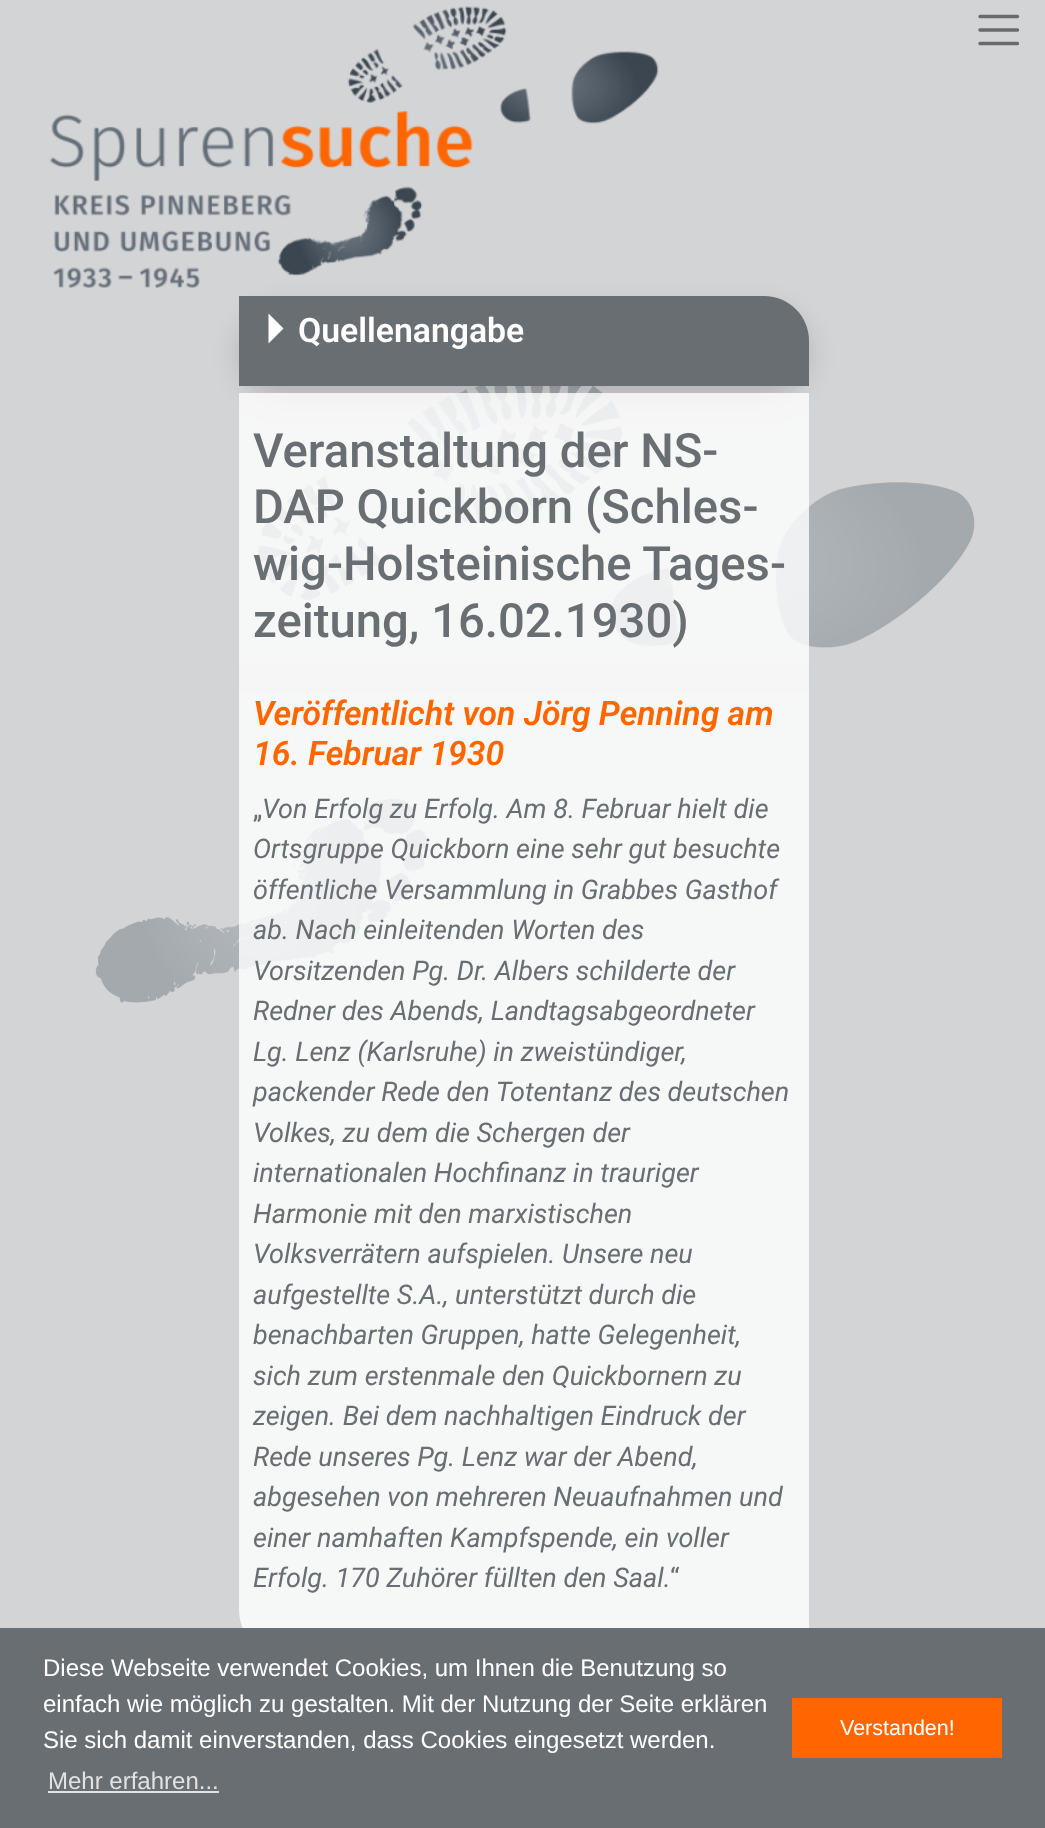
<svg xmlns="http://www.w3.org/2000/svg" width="1045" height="1828">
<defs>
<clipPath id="clip1"><path d="M239 678h570v977h-525c-25 0-45-20-45-45z"/></clipPath>
</defs>
<rect width="100%" height="100%" fill="#d3d4d6"/>
<image x="95" y="386" width="880" height="617" href="media/1.png"/>
<image x="49" y="6" width="610" height="282" href="media/2.png"/>
<path d="M980 16.5h37.5m-37.5 13.5h37.5m-37.5 13.5h37.5" fill="none" stroke="#6a6a6b" stroke-width="3.4" stroke-linecap="round"/>
<rect x="239" y="309" width="570" height="90" rx="45" fill="#00000026" filter="blur(13.5px)"/>
<path d="M239 296h525c25 0 45 20 45 45v45h-570z" fill="#696e73"/>
<path d="M268.5 343.5v-30l15 15z" fill="#fff"/>
<text x="298" y="342" style="font-family:Roboto;font-size:33.75px;font-weight:600;fill:#fff">Quellenangabe</text>
<rect x="239" y="393" width="570" height="15" fill="#ffffffcc"/>
<rect x="239" y="408" width="570" height="255" fill="#ffffffcc"/>
<text x="253" y="467" style="font-family:Roboto;font-size:47.25px;font-weight:500;fill:#696e73">Veranstaltung der NS-</text>
<text x="253" y="523" style="font-family:Roboto;font-size:47.25px;font-weight:500;fill:#696e73">DAP Quickborn (Schles-</text>
<text x="253" y="580" style="font-family:Roboto;font-size:47.25px;font-weight:500;fill:#696e73">wig-Holsteinische Tages-</text>
<text x="253" y="637" style="font-family:Roboto;font-size:47.25px;font-weight:500;fill:#696e73">zeitung, 16.02.1930)</text>
<rect x="239" y="663" width="570" height="30" fill="#f6f6f7"/>
<g clip-path="url(#clip1)">
<rect x="239" y="693" width="570" height="935" fill="#ffffffcc"/>
</g>
<text x="253" y="725" style="font-family:Roboto;font-size:33.75px;font-weight:600;font-style:italic;fill:#f60">Veröffentlicht von Jörg Penning am</text>
<text x="253" y="765" style="font-family:Roboto;font-size:33.75px;font-weight:600;font-style:italic;fill:#f60">16. Februar 1930</text>
<text x="253" y="818" style="font-family:Roboto;font-size:27px;fill:#696e73">„</text>
<text x="262" y="818" style="font-family:Roboto;font-size:27px;font-style:italic;fill:#696e73">Von Erfolg zu Erfolg. Am 8. Februar hielt die</text>
<text x="253" y="858" style="font-family:Roboto;font-size:27px;font-style:italic;fill:#696e73">Ortsgruppe Quickborn eine sehr gut besuchte</text>
<text x="253" y="899" style="font-family:Roboto;font-size:27px;font-style:italic;fill:#696e73">öffentliche Versammlung in Grabbes Gasthof</text>
<text x="253" y="939" style="font-family:Roboto;font-size:27px;font-style:italic;fill:#696e73">ab. Nach einleitenden Worten des</text>
<text x="253" y="980" style="font-family:Roboto;font-size:27px;font-style:italic;fill:#696e73">Vorsitzenden Pg. Dr. Albers schilderte der</text>
<text x="253" y="1020" style="font-family:Roboto;font-size:27px;font-style:italic;fill:#696e73">Redner des Abends, Landtagsabgeordneter</text>
<text x="253" y="1061" style="font-family:Roboto;font-size:27px;font-style:italic;fill:#696e73">Lg. Lenz (Karlsruhe) in zweistündiger,</text>
<text x="253" y="1101" style="font-family:Roboto;font-size:27px;font-style:italic;fill:#696e73">packender Rede den Totentanz des deutschen</text>
<text x="253" y="1142" style="font-family:Roboto;font-size:27px;font-style:italic;fill:#696e73">Volkes, zu dem die Schergen der</text>
<text x="253" y="1182" style="font-family:Roboto;font-size:27px;font-style:italic;fill:#696e73">internationalen Hochfinanz in trauriger</text>
<text x="253" y="1223" style="font-family:Roboto;font-size:27px;font-style:italic;fill:#696e73">Harmonie mit den marxistischen</text>
<text x="253" y="1263" style="font-family:Roboto;font-size:27px;font-style:italic;fill:#696e73">Volksverrätern aufspielen. Unsere neu</text>
<text x="253" y="1304" style="font-family:Roboto;font-size:27px;font-style:italic;fill:#696e73">aufgestellte S.A., unterstützt durch die</text>
<text x="253" y="1344" style="font-family:Roboto;font-size:27px;font-style:italic;fill:#696e73">benachbarten Gruppen, hatte Gelegenheit,</text>
<text x="253" y="1385" style="font-family:Roboto;font-size:27px;font-style:italic;fill:#696e73">sich zum erstenmale den Quickbornern zu</text>
<text x="253" y="1425" style="font-family:Roboto;font-size:27px;font-style:italic;fill:#696e73">zeigen. Bei dem nachhaltigen Eindruck der</text>
<text x="253" y="1466" style="font-family:Roboto;font-size:27px;font-style:italic;fill:#696e73">Rede unseres Pg. Lenz war der Abend,</text>
<text x="253" y="1506" style="font-family:Roboto;font-size:27px;font-style:italic;fill:#696e73">abgesehen von mehreren Neuaufnahmen und</text>
<text x="253" y="1547" style="font-family:Roboto;font-size:27px;font-style:italic;fill:#696e73">einer namhaften Kampfspende, ein voller</text>
<text x="253" y="1587" style="font-family:Roboto;font-size:27px;font-style:italic;fill:#696e73">Erfolg. 170 Zuhörer füllten den Saal.</text>
<text x="670" y="1587" style="font-family:Roboto;font-size:27px;fill:#696e73">“</text>
<rect y="1628" width="1045" height="200" fill="#696e73"/>
<text x="43" y="1676" style="font-family:Liberation Sans;font-size:24px;fill:#fff">Diese Webseite verwendet Cookies, um Ihnen die Benutzung so</text>
<text x="43" y="1712" style="font-family:Liberation Sans;font-size:24px;fill:#fff">einfach wie möglich zu gestalten. Mit der Nutzung der Seite erklären</text>
<text x="43" y="1748" style="font-family:Liberation Sans;font-size:24px;fill:#fff">Sie sich damit einverstanden, dass Cookies eingesetzt werden.</text>
<text x="48" y="1789" style="font-family:Liberation Sans;font-size:24px;fill:#e1e2e3">Mehr erfahren...</text>
<rect x="48" y="1791" width="171" height="2" fill="#e1e2e3"/>
<rect x="792" y="1698" width="210" height="60" fill="#f60"/>
<text x="840" y="1735" style="font-family:Liberation Sans;font-size:21.5px;fill:#fff">Verstanden!</text>
</svg>
